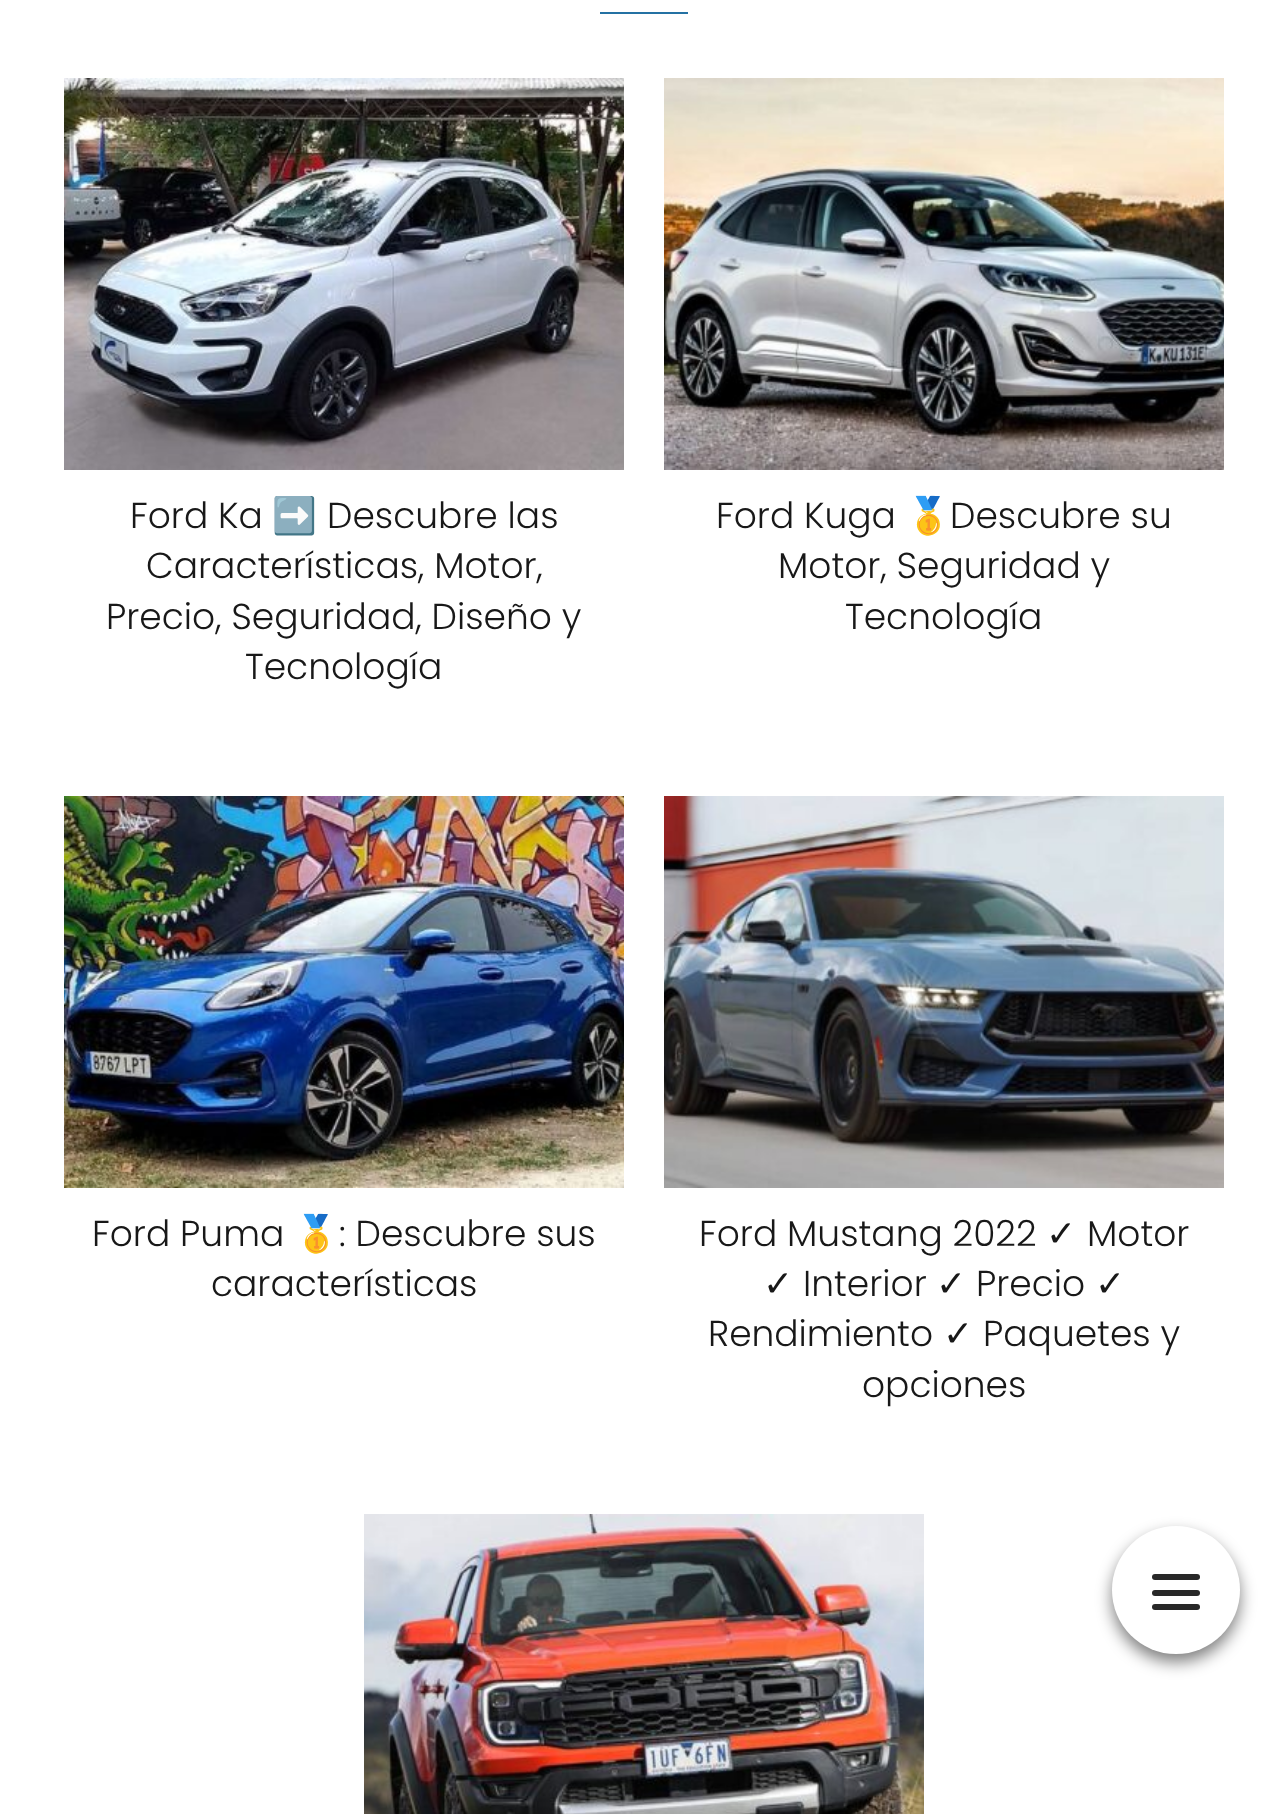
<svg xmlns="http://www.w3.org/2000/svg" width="1287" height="1814">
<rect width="100%" height="100%" fill="#fff"/>
<rect x="600" y="12" width="88" height="2" fill="#2471a3"/>
<image x="64" y="78" width="560" height="392" href="media/1.png"/>
<text x="130" y="528" style="font-family:Poppins;font-size:36px;font-weight:300;fill:#181818">Ford Ka</text>
<text x="272" y="528" style="font-family:Noto Color Emoji;font-size:36px;fill:#181818">➡️</text>
<text x="327" y="528" style="font-family:Poppins;font-size:36px;font-weight:300;fill:#181818">Descubre las</text>
<text x="146" y="578" style="font-family:Poppins;font-size:36px;font-weight:300;fill:#181818">Características, Motor,</text>
<text x="106" y="629" style="font-family:Poppins;font-size:36px;font-weight:300;fill:#181818">Precio, Seguridad, Diseño y</text>
<text x="245" y="679" style="font-family:Poppins;font-size:36px;font-weight:300;fill:#181818">Tecnología</text>
<image x="664" y="78" width="560" height="392" href="media/2.png"/>
<text x="716" y="528" style="font-family:Poppins;font-size:36px;font-weight:300;fill:#181818">Ford Kuga</text>
<text x="906" y="528" style="font-family:Noto Color Emoji;font-size:36px;fill:#181818">🥇</text>
<text x="950" y="528" style="font-family:Poppins;font-size:36px;font-weight:300;fill:#181818">Descubre su</text>
<text x="778" y="578" style="font-family:Poppins;font-size:36px;font-weight:300;fill:#181818">Motor, Seguridad y</text>
<text x="845" y="629" style="font-family:Poppins;font-size:36px;font-weight:300;fill:#181818">Tecnología</text>
<image x="64" y="796" width="560" height="392" href="media/3.png"/>
<text x="92" y="1246" style="font-family:Poppins;font-size:36px;font-weight:300;fill:#181818">Ford Puma</text>
<text x="294" y="1246" style="font-family:Noto Color Emoji;font-size:36px;fill:#181818">🥇</text>
<text x="339" y="1246" style="font-family:Poppins;font-size:36px;font-weight:300;fill:#181818">: Descubre sus</text>
<text x="211" y="1296" style="font-family:Poppins;font-size:36px;font-weight:300;fill:#181818">características</text>
<image x="664" y="796" width="560" height="392" href="media/4.png"/>
<text x="699" y="1246" style="font-family:Poppins;font-size:36px;font-weight:300;fill:#181818">Ford Mustang 2022</text>
<text x="1046" y="1246" style="font-family:DejaVu Sans;font-size:36px;fill:#181818">✓</text>
<text x="1087" y="1246" style="font-family:Poppins;font-size:36px;font-weight:300;fill:#181818">Motor</text>
<text x="763" y="1296" style="font-family:DejaVu Sans;font-size:36px;fill:#181818">✓</text>
<text x="803" y="1296" style="font-family:Poppins;font-size:36px;font-weight:300;fill:#181818">Interior</text>
<text x="936" y="1296" style="font-family:DejaVu Sans;font-size:36px;fill:#181818">✓</text>
<text x="976" y="1296" style="font-family:Poppins;font-size:36px;font-weight:300;fill:#181818">Precio</text>
<text x="1095" y="1296" style="font-family:DejaVu Sans;font-size:36px;fill:#181818">✓</text>
<text x="708" y="1346" style="font-family:Poppins;font-size:36px;font-weight:300;fill:#181818">Rendimiento</text>
<text x="943" y="1346" style="font-family:DejaVu Sans;font-size:36px;fill:#181818">✓</text>
<text x="983" y="1346" style="font-family:Poppins;font-size:36px;font-weight:300;fill:#181818">Paquetes y</text>
<text x="862" y="1397" style="font-family:Poppins;font-size:36px;font-weight:300;fill:#181818">opciones</text>
<image x="364" y="1514" width="560" height="300" href="media/5.png"/>
<rect x="1112" y="1534" width="128" height="128" rx="64" fill="#00000080" filter="blur(8px)"/>
<circle cx="1176" cy="1590" r="64" fill="#fff"/>
<rect x="1152" y="1574" width="48" height="6" rx="3" fill="#282828"/>
<rect x="1152" y="1590" width="48" height="6" rx="3" fill="#282828"/>
<rect x="1152" y="1604" width="48" height="6" rx="3" fill="#282828"/>
</svg>
